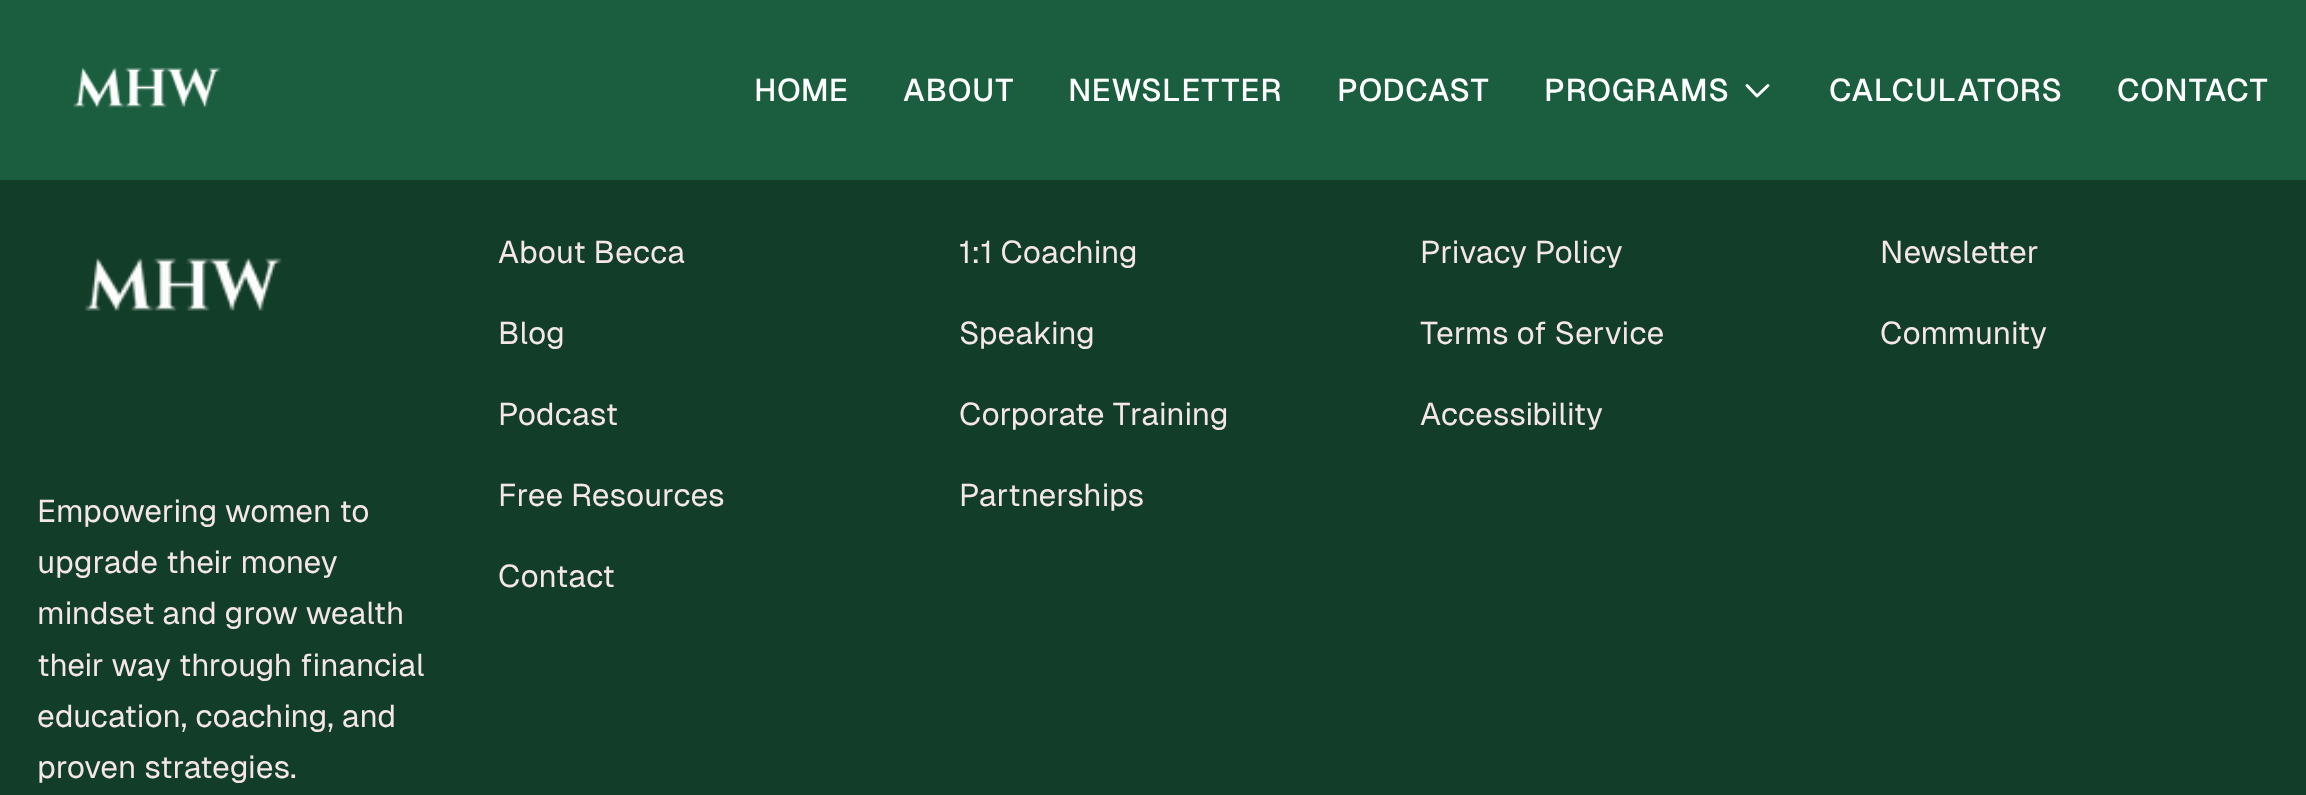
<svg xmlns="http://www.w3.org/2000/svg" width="2306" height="795">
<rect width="100%" height="100%" fill="#123d28"/>
<rect width="2306" height="180" fill="#1b5e3f"/>
<image x="73" y="67" width="148" height="41" href="media/1.png"/>
<text x="754" y="101" style="font-family:Geist;font-size:31.5px;font-weight:500;letter-spacing:0.75px;fill:#fff">HOME</text>
<text x="903" y="101" style="font-family:Geist;font-size:31.5px;font-weight:500;letter-spacing:0.75px;fill:#fff">ABOUT</text>
<text x="1068" y="101" style="font-family:Geist;font-size:31.5px;font-weight:500;letter-spacing:0.75px;fill:#fff">NEWSLETTER</text>
<text x="1337" y="101" style="font-family:Geist;font-size:31.5px;font-weight:500;letter-spacing:0.75px;fill:#fff">PODCAST</text>
<text x="1544" y="101" style="font-family:Geist;font-size:31.5px;font-weight:500;letter-spacing:0.75px;fill:#fff">PROGRAMS</text>
<path d="M1768 85.5l-11 10.5l-10-10.5" fill="none" stroke="#fff" stroke-width="3" stroke-linecap="round" stroke-linejoin="round"/>
<text x="1829" y="101" style="font-family:Geist;font-size:31.5px;font-weight:500;letter-spacing:0.75px;fill:#fff">CALCULATORS</text>
<text x="2117" y="101" style="font-family:Geist;font-size:31.5px;font-weight:500;letter-spacing:0.75px;fill:#fff">CONTACT</text>
<text x="498" y="263" style="font-family:Geist;font-size:31.5px;fill:#f4e6e9">About Becca</text>
<text x="498" y="344" style="font-family:Geist;font-size:31.5px;fill:#f4e6e9">Blog</text>
<text x="498" y="425" style="font-family:Geist;font-size:31.5px;fill:#f4e6e9">Podcast</text>
<text x="498" y="506" style="font-family:Geist;font-size:31.5px;fill:#f4e6e9">Free Resources</text>
<text x="498" y="587" style="font-family:Geist;font-size:31.5px;fill:#f4e6e9">Contact</text>
<text x="959" y="263" style="font-family:Geist;font-size:31.5px;fill:#f4e6e9">1:1 Coaching</text>
<text x="959" y="344" style="font-family:Geist;font-size:31.5px;fill:#f4e6e9">Speaking</text>
<text x="959" y="425" style="font-family:Geist;font-size:31.5px;fill:#f4e6e9">Corporate Training</text>
<text x="959" y="506" style="font-family:Geist;font-size:31.5px;fill:#f4e6e9">Partnerships</text>
<text x="1420" y="263" style="font-family:Geist;font-size:31.5px;fill:#f4e6e9">Privacy Policy</text>
<text x="1420" y="344" style="font-family:Geist;font-size:31.5px;fill:#f4e6e9">Terms of Service</text>
<text x="1420" y="425" style="font-family:Geist;font-size:31.5px;fill:#f4e6e9">Accessibility</text>
<text x="1880" y="263" style="font-family:Geist;font-size:31.5px;fill:#f4e6e9">Newsletter</text>
<text x="1880" y="344" style="font-family:Geist;font-size:31.5px;fill:#f4e6e9">Community</text>
<image x="85" y="258" width="197" height="53" href="media/2.png"/>
<text x="37" y="522" style="font-family:Geist;font-size:31.5px;fill:#f4e6e9">Empowering women to</text>
<text x="37" y="573" style="font-family:Geist;font-size:31.5px;fill:#f4e6e9">upgrade their money</text>
<text x="37" y="624" style="font-family:Geist;font-size:31.5px;fill:#f4e6e9">mindset and grow wealth</text>
<text x="37" y="676" style="font-family:Geist;font-size:31.5px;fill:#f4e6e9">their way through financial</text>
<text x="37" y="727" style="font-family:Geist;font-size:31.5px;fill:#f4e6e9">education, coaching, and</text>
<text x="37" y="778" style="font-family:Geist;font-size:31.5px;fill:#f4e6e9">proven strategies.</text>
</svg>
